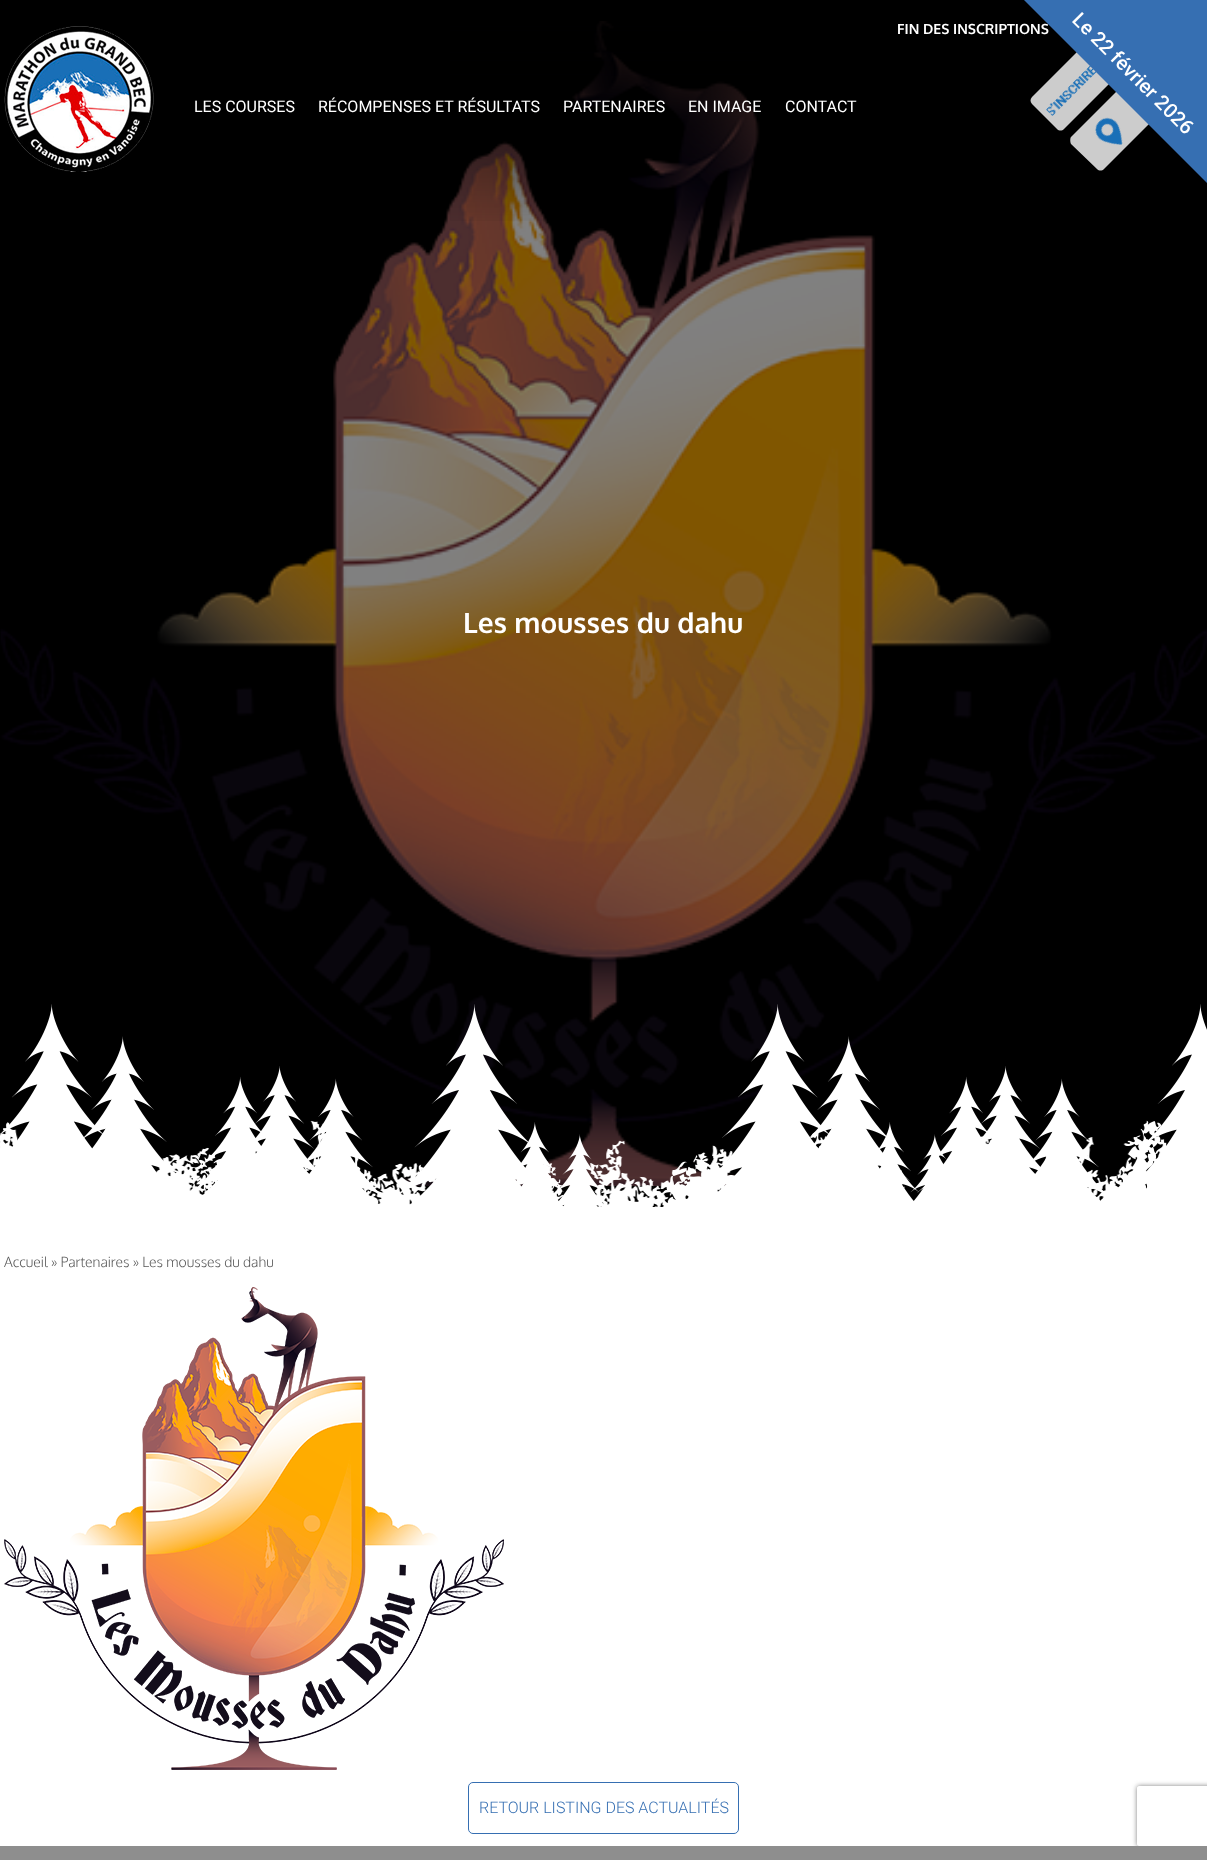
<svg xmlns="http://www.w3.org/2000/svg" width="1207" height="1860">
<defs>
<clipPath id="clip1"><path d="M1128 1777h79v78h-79zm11 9h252c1 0 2 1 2 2v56c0 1-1 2-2 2h-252c-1 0-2-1-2-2v-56c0-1 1-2 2-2z" clip-rule="evenodd"/></clipPath>
</defs>
<rect width="100%" height="100%" fill="#fff"/>
<rect width="1207" height="1207" fill="#000"/>
<image x="0" y="21" width="1207" height="1165" href="media/5.png"/>
<image x="450" y="21" width="309" height="200" href="media/1.png"/>
<image x="4" y="26" width="150" height="146" href="media/2.png"/>
<text x="194" y="112" style="font-family:Roboto;font-size:16px;fill:#fff">LES COURSES</text>
<text x="318" y="112" style="font-family:Roboto;font-size:16px;fill:#fff">RÉCOMPENSES ET RÉSULTATS</text>
<text x="563" y="112" style="font-family:Roboto;font-size:16px;fill:#fff">PARTENAIRES</text>
<text x="688" y="112" style="font-family:Roboto;font-size:16px;fill:#fff">EN IMAGE</text>
<text x="785" y="112" style="font-family:Roboto;font-size:16px;fill:#fff">CONTACT</text>
<text x="897" y="34" style="font-family:Oxygen;font-size:14px;font-weight:bold;fill:#fff">FIN DES INSCRIPTIONS</text>
<path d="M1032 97c-2 2-2 5 0 7l25 25c2 2 5 2 7 0l46-46l-32-32z" fill="#ccc"/>
<image x="1046" y="65" width="51" height="51" href="media/3.png"/>
<path d="M1071 137c-1 1-1 5 0 7l26 25c2 2 5 2 7 0l46-46l-33-32z" fill="#ccc"/>
<image x="1095" y="117" width="28" height="28" href="media/4.png"/>
<path d="M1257-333l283 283l-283 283l-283-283z" fill="#366fb2"/>
<text x="1071" y="21" transform="rotate(45 1071 21)" style="font-family:Roboto;font-size:20px;font-weight:500;fill:#fff">Le 22 février 2026</text>
<text x="463" y="633" style="font-family:Oxygen;font-size:28px;font-weight:bold;fill:#fff">Les mousses du dahu</text>
<image x="0" y="1004" width="1207" height="203" href="media/6.png"/>
<text x="4" y="1267" style="font-family:Oxygen;font-size:14px;font-weight:300;fill:#585858">Accueil » Partenaires » Les mousses du dahu</text>
<image x="4" y="1287" width="500" height="483" href="media/7.png"/>
<rect x="468.5" y="1782.5" width="270" height="51" rx="4.5" fill="none" stroke="#366fb2"/>
<text x="479" y="1813" style="font-family:Roboto;font-size:16px;font-weight:300;fill:#366fb2">RETOUR LISTING DES ACTUALITÉS</text>
<g clip-path="url(#clip1)">
<rect x="1137" y="1786" width="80" height="60" rx="2" fill="#808080" filter="blur(2.5px)"/>
</g>
<rect y="1846" width="1207" height="14" fill="#8e8e8e"/>
</svg>
